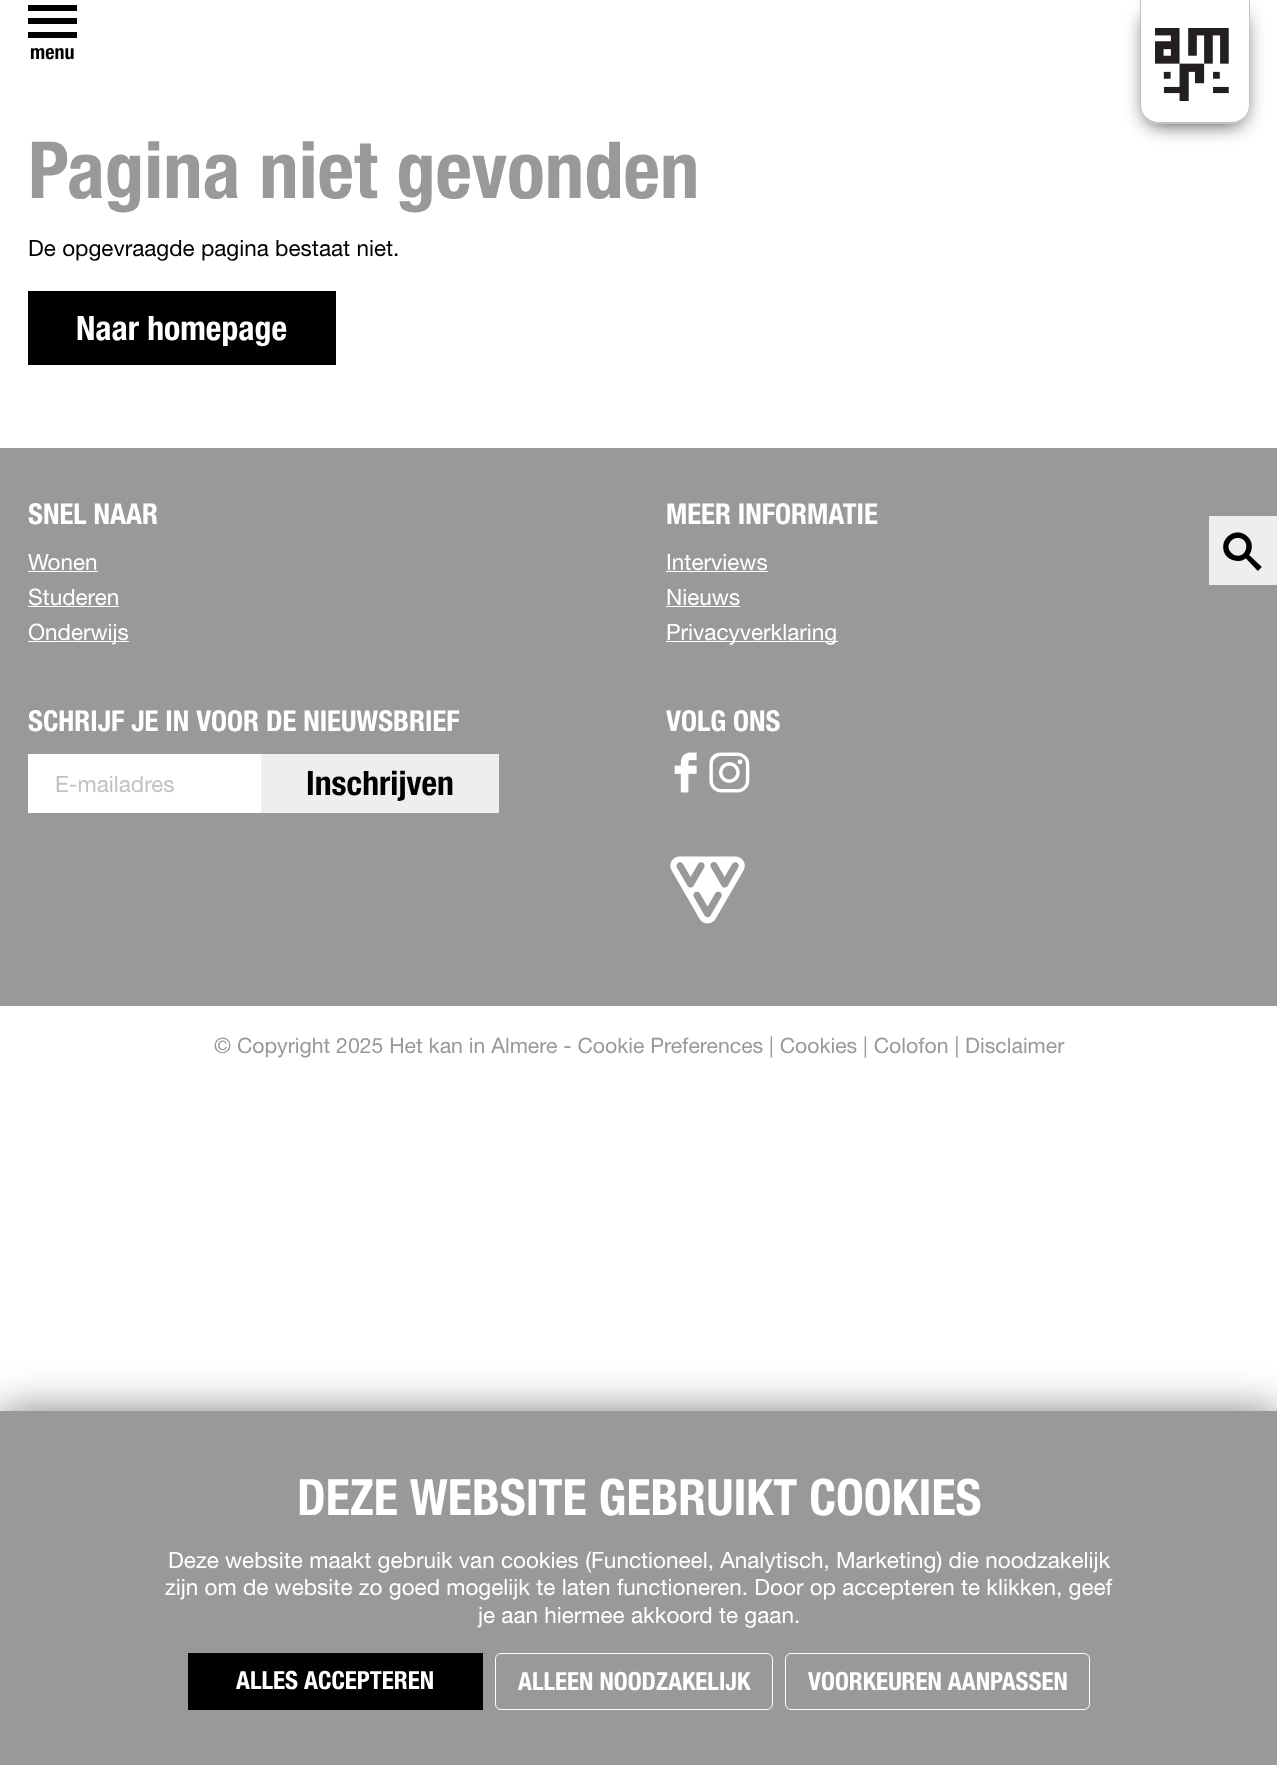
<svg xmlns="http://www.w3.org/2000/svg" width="1277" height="1765">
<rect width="100%" height="100%" fill="#fff"/>
<path d="M28 5h49v6h-49zm0 13h49v6h-49zm0 14h49v6h-49z" fill="#000"/>
<text x="30" y="59" style="font-family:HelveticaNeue;font-size:20px;fill:#000">menu</text>
<rect y="448" width="1277" height="558" fill="#999"/>
<rect x="1209" y="516" width="68" height="69" fill="#eee"/>
<image x="1223" y="532" width="39" height="39" href="media/1.png"/>
<rect x="1146" y="13" width="98" height="111" rx="13" fill="#000000bf" filter="blur(10px)"/>
<path d="M1140 0h110v105c0 10.5-8.5 19-19 19h-72c-10.5 0-19-8.5-19-19z" fill="#fff"/>
<path d="M1140 0h110v105c0 10-8 19-19 19h-72c-11 0-19-9-19-19zm1 0h108v105c0 10-8 17-18 17h-72c-10 0-18-7-18-17z" fill="#c3c2bf" fill-rule="evenodd"/>
<image x="1155" y="28" width="74" height="73" href="media/2.png"/>
<text x="28" y="198" style="font-family:HelveticaNeue;font-size:78.75px;fill:#999">Pagina niet gevonden</text>
<text x="28" y="256" style="font-family:'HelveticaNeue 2';font-size:22.5px;fill:#000">De opgevraagde pagina bestaat niet.</text>
<rect x="28" y="291" width="308" height="74" fill="#000"/>
<text x="76" y="340" style="font-family:HelveticaNeue;font-size:33.75px;fill:#fff">Naar homepage</text>
<text x="28" y="524" style="font-family:HelveticaNeue;font-size:28.75px;fill:#fff">SNEL NAAR</text>
<text x="28" y="570" style="font-family:'HelveticaNeue 2';font-size:22.5px;fill:#fff">Wonen</text>
<rect x="28" y="571" width="70" height="1" fill="#fff"/>
<text x="28" y="605" style="font-family:'HelveticaNeue 2';font-size:22.5px;fill:#fff">Studeren</text>
<rect x="28" y="606" width="91" height="1" fill="#fff"/>
<rect x="28" y="641" width="101" height="1" fill="#fff"/>
<text x="28" y="640" style="font-family:'HelveticaNeue 2';font-size:22.5px;fill:#fff">Onderwijs</text>
<text x="666" y="524" style="font-family:HelveticaNeue;font-size:28.75px;fill:#fff">MEER INFORMATIE</text>
<text x="666" y="570" style="font-family:'HelveticaNeue 2';font-size:22.5px;fill:#fff">Interviews</text>
<rect x="666" y="571" width="102" height="1" fill="#fff"/>
<text x="666" y="605" style="font-family:'HelveticaNeue 2';font-size:22.5px;fill:#fff">Nieuws</text>
<rect x="666" y="606" width="74" height="1" fill="#fff"/>
<rect x="666" y="641" width="172" height="1" fill="#fff"/>
<text x="666" y="640" style="font-family:'HelveticaNeue 2';font-size:22.5px;fill:#fff">Privacyverklaring</text>
<text x="28" y="731" style="font-family:HelveticaNeue;font-size:28.75px;fill:#fff">SCHRIJF JE IN VOOR DE NIEUWSBRIEF</text>
<rect x="28" y="754" width="233" height="59" fill="#fff"/>
<text x="55" y="792" style="font-family:'HelveticaNeue 2';font-size:22.5px;fill:#c3c2bf">E-mailadres</text>
<rect x="261" y="754" width="238" height="59" fill="#eee"/>
<text x="306" y="795" style="font-family:HelveticaNeue;font-size:33.75px;fill:#000">Inschrijven</text>
<text x="666" y="731" style="font-family:HelveticaNeue;font-size:28.75px;fill:#fff">VOLG ONS</text>
<image x="674" y="752" width="23" height="41" href="media/3.png"/>
<image x="709" y="752" width="41" height="41" href="media/4.png"/>
<image x="670" y="856" width="75" height="68" href="media/5.png"/>
<text x="214" y="1053" style="font-family:'HelveticaNeue 2';font-size:21.25px;fill:#999">© Copyright 2025 Het kan in Almere - Cookie Preferences | Cookies | Colofon | Disclaimer</text>
<rect y="1411" width="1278" height="354" fill="#00000080" filter="blur(21px)"/>
<rect y="1411" width="1277" height="354" fill="#999"/>
<text x="297" y="1515" style="font-family:HelveticaNeue;font-size:50px;fill:#fff">DEZE WEBSITE GEBRUIKT COOKIES</text>
<text x="168" y="1568" style="font-family:'HelveticaNeue 2';font-size:22.5px;fill:#fff">Deze website maakt gebruik van cookies (Functioneel, Analytisch, Marketing) die noodzakelijk</text>
<text x="165" y="1595" style="font-family:'HelveticaNeue 2';font-size:22.5px;fill:#fff">zijn om de website zo goed mogelijk te laten functioneren. Door op accepteren te klikken, geef</text>
<text x="478" y="1623" style="font-family:'HelveticaNeue 2';font-size:22.5px;fill:#fff">je aan hiermee akkoord te gaan.</text>
<rect x="188" y="1653" width="295" height="57" fill="#000"/>
<text x="236" y="1689" style="font-family:HelveticaNeue;font-size:25px;fill:#fff">ALLES ACCEPTEREN</text>
<rect x="495.5" y="1653.5" width="277" height="56" rx="5.5" fill="none" stroke="#fff"/>
<text x="518" y="1690" style="font-family:HelveticaNeue;font-size:25px;fill:#fff">ALLEEN NOODZAKELIJK</text>
<rect x="785.5" y="1653.5" width="304" height="56" rx="5.5" fill="none" stroke="#fff"/>
<text x="808" y="1690" style="font-family:HelveticaNeue;font-size:25px;fill:#fff">VOORKEUREN AANPASSEN</text>
</svg>
